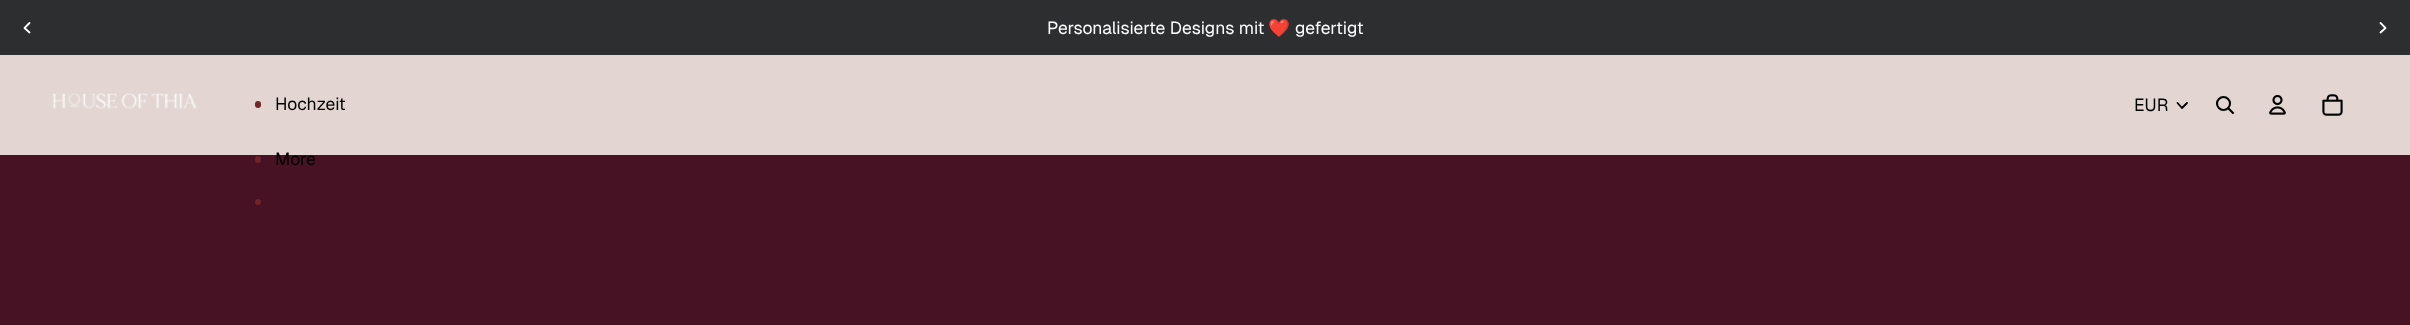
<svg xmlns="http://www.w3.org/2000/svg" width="2410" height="325">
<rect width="100%" height="100%" fill="#2d2e2f"/>
<text x="1047" y="34" style="font-family:Geist;font-size:17.5px;fill:#fff">Personalisierte Designs mit</text>
<text x="1268" y="34" style="font-family:Noto Color Emoji;font-size:17.5px;fill:#fff">❤️</text>
<text x="1295" y="34" style="font-family:Geist;font-size:17.5px;fill:#fff">gefertigt</text>
<path d="M29.5 23l-5 5l5 4.5" fill="none" stroke="#fff" stroke-width="1.8" stroke-linecap="round" stroke-linejoin="round"/>
<path d="M2380.5 23l5 5l-5 4.5" fill="none" stroke="#fff" stroke-width="1.8" stroke-linecap="round" stroke-linejoin="round"/>
<rect y="55" width="2410" height="100" fill="#e3d6d2"/>
<image x="52" y="93" width="145" height="16" href="media/1.png"/>
<rect x="255" y="101" width="6" height="7" rx="3" fill="#72242b"/>
<text x="275" y="110" style="font-family:Geist;font-size:17.5px;fill:#000">Hochzeit</text>
<rect y="155" width="2410" height="170" fill="#471224"/>
<rect x="255" y="156" width="6" height="7" rx="3" fill="#72242b"/>
<text x="275" y="165" style="font-family:Geist;font-size:17.5px;fill:#000">More</text>
<circle cx="258" cy="202" r="3" fill="#72242b"/>
<text x="2134" y="111" style="font-family:Geist;font-size:17.5px;fill:#000">EUR</text>
<path d="M2187 103l-5 5l-4.5-5" fill="none" stroke="#000" stroke-width="1.8" stroke-linecap="round" stroke-linejoin="round"/>
<circle cx="2223.5" cy="103.5" r="6.5" fill="none" stroke="#000" stroke-width="2.1"/>
<path d="M2228.5 108.5l4.5 4.5" fill="none" stroke="#000" stroke-width="2.1" stroke-linecap="round" stroke-linejoin="round"/>
<image x="2269" y="94" width="17" height="21" href="media/2.png"/>
<image x="2322" y="94" width="21" height="22" href="media/3.png"/>
</svg>
